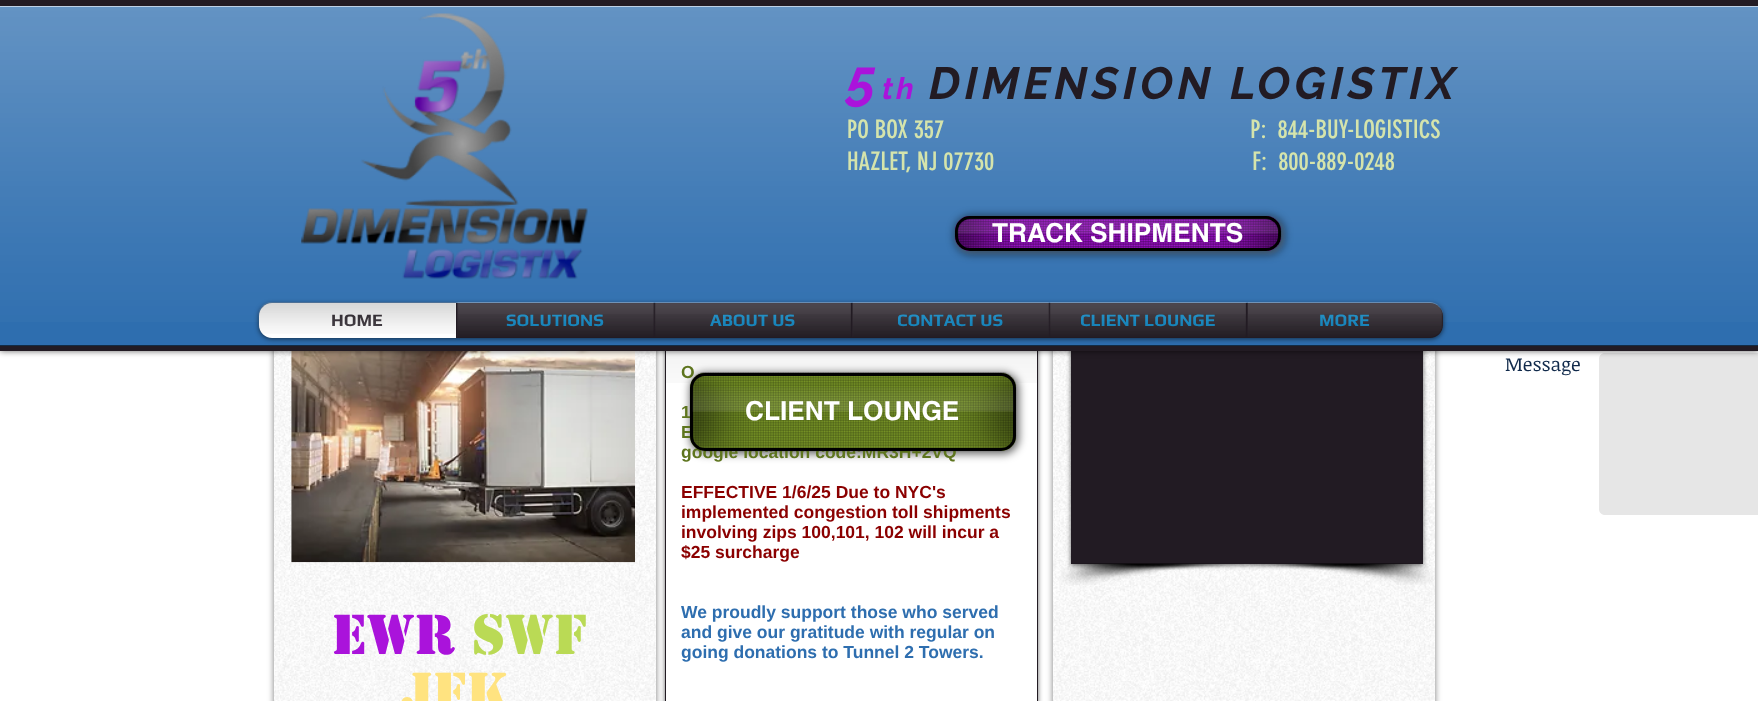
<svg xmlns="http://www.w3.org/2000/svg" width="1758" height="701">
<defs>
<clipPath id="clip1"><path d="M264 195h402v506h-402zm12.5 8h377c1.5 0 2.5 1 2.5 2.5v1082c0 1.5-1 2.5-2.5 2.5h-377c-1.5 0-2.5-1-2.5-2.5v-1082c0-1.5 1-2.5 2.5-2.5z" clip-rule="evenodd"/></clipPath>
<clipPath id="clip2"><path d="M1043 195h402v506h-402zm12.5 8h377c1.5 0 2.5 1 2.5 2.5v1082c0 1.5-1 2.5-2.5 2.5h-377c-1.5 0-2.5-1-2.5-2.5v-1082c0-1.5 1-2.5 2.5-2.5z" clip-rule="evenodd"/></clipPath>
</defs>
<rect width="100%" height="100%" fill="#fff"/>
<g clip-path="url(#clip1)">
<rect x="274" y="205" width="382" height="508" rx="2.5" fill="#00000087" filter="blur(3px)"/>
</g>
<image x="274" y="351" width="382" height="350" href="media/25.png"/>
<image x="291" y="351" width="344" height="212" href="media/26.png"/>
<rect x="665" y="295" width="373" height="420" rx="6" fill="#00000099" filter="blur(2.5px)"/>
<rect x="666" y="351" width="371" height="350" fill="#fff"/>
<image x="666" y="351" width="371" height="32" href="media/27.png"/>
<rect x="665.5" y="294.5" width="372" height="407" fill="none" stroke="#221b23"/>
<g clip-path="url(#clip2)">
<rect x="1053" y="205" width="382" height="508" rx="2.5" fill="#00000087" filter="blur(3px)"/>
</g>
<image x="1053" y="351" width="382" height="350" href="media/28.png"/>
<rect x="1071" y="279" width="352" height="286" fill="#00000099" filter="blur(2.5px)"/>
<rect x="1071" y="351" width="352" height="213" fill="#221b23"/>
<path d="M1605 353h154v162h-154c-3.5 0-6-2.5-6-6v-150c0-3.5 2.5-6 6-6z" fill="#e6e6e6"/>
<rect width="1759" height="351" fill="#00000099" filter="blur(3px)"/>
<rect y="7" width="1758" height="338" fill="#2e6eaf"/>
<image x="0" y="7" width="1758" height="315" href="media/1.png"/>
<rect y="345" width="1758" height="1" fill="#122c46"/>
<rect y="6" width="1758" height="1" fill="#bdd1e6"/>
<rect width="1758" height="6" fill="#221b23"/>
<rect y="346" width="1758" height="5" fill="#221b23"/>
<image x="301" y="13" width="287" height="266" href="media/2.png"/>
<text x="847" y="99" style="font-family:Raleway;font-size:55px;font-weight:bold;font-style:italic;letter-spacing:6px;fill:#aa13db">5</text>
<text x="882" y="99" style="font-family:Raleway;font-size:30px;font-weight:bold;font-style:italic;letter-spacing:3px;fill:#aa13db">th</text>
<text x="929" y="99" style="font-family:Raleway;font-size:45px;font-weight:bold;font-style:italic;letter-spacing:4.5px;fill:#221b23">DIMENSION LOGISTIX</text>
<text x="847" y="138" style="font-family:'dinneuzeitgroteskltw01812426';font-size:25px;fill:#d5e4ac" xml:space="preserve">PO BOX 357                                                   P:  844-BUY-LOGISTICS</text>
<text x="847" y="170" style="font-family:'dinneuzeitgroteskltw01812426';font-size:25px;fill:#d5e4ac" xml:space="preserve">HAZLET, NJ 07730                                           F:  800-889-0248</text>
<rect x="956" y="218" width="327" height="35" rx="15" fill="#ffffff4d" filter="blur(2px)"/>
<rect x="955" y="216" width="329" height="38" rx="16" fill="#00000099" filter="blur(4px)"/>
<rect x="955" y="216" width="326" height="35" rx="15" fill="#aa13db"/>
<image x="954" y="216" width="328" height="35" href="media/3.png"/>
<rect x="956.5" y="217.5" width="323" height="32" rx="13.5" fill="none" stroke="#000" stroke-width="3"/>
<image x="958" y="219" width="59" height="29" href="media/5.png"/>
<image x="1221" y="219" width="57" height="29" href="media/6.png"/>
<text x="992" y="242" style="font-family:helvetica;font-size:26.25px;font-weight:bold;fill:#fff">TRACK SHIPMENTS</text>
<image x="957" y="218" width="322" height="16" href="media/4.png"/>
<rect x="259" y="304" width="1184" height="35" rx="13" fill="#00000099" filter="blur(2.5px)"/>
<image x="258" y="302" width="1185" height="33" href="media/7.png"/>
<image x="259" y="312" width="4" height="22" href="media/8.png"/>
<path d="M272 303h184v35h-184c-7 0-13-6-13-13v-9c0-7 6-13 13-13z" fill="#fff"/>
<text x="331" y="326" style="font-family:Play;font-size:17.5px;font-weight:bold;fill:#221b23">HOME</text>
<image x="259" y="302" width="197" height="32" href="media/9.png"/>
<image x="259" y="302" width="197" height="35" href="media/10.png"/>
<rect x="456" y="303" width="395" height="35" fill="#221b23"/>
<text x="506" y="326" style="font-family:Play;font-size:17.5px;font-weight:bold;fill:#0088cb">SOLUTIONS</text>
<image x="457" y="302" width="197" height="35" href="media/11.png"/>
<image x="458" y="314" width="196" height="23" href="media/12.png"/>
<text x="710" y="326" style="font-family:Play;font-size:17.5px;font-weight:bold;fill:#0088cb">ABOUT US</text>
<image x="654" y="302" width="198" height="35" href="media/13.png"/>
<image x="655" y="314" width="196" height="23" href="media/14.png"/>
<rect x="851" y="303" width="395" height="35" fill="#221b23"/>
<text x="897" y="326" style="font-family:Play;font-size:17.5px;font-weight:bold;fill:#0088cb">CONTACT US</text>
<image x="852" y="302" width="197" height="35" href="media/15.png"/>
<image x="853" y="314" width="196" height="23" href="media/16.png"/>
<text x="1080" y="326" style="font-family:Play;font-size:17.5px;font-weight:bold;fill:#0088cb">CLIENT LOUNGE</text>
<image x="1049" y="302" width="198" height="35" href="media/17.png"/>
<image x="1050" y="314" width="196" height="23" href="media/18.png"/>
<path d="M1246 303h184c7 0 13 6 13 13v9c0 7-6 13-13 13h-184z" fill="#221b23"/>
<text x="1319" y="326" style="font-family:Play;font-size:17.5px;font-weight:bold;fill:#0088cb">MORE</text>
<image x="1247" y="302" width="196" height="35" href="media/19.png"/>
<image x="1248" y="314" width="194" height="23" href="media/20.png"/>
<rect x="691" y="374" width="327" height="79" rx="15" fill="#ffffff4d" filter="blur(2px)"/>
<rect x="690" y="373" width="329" height="81" rx="16" fill="#00000099" filter="blur(4px)"/>
<text x="681" y="378" style="font-family:Liberation Sans;font-size:17.5px;font-weight:bold;fill:#5e751e">O</text>
<text x="681" y="438" style="font-family:Liberation Sans;font-size:17.5px;font-weight:bold;fill:#5e751e">E</text>
<text x="681" y="458" style="font-family:Liberation Sans;font-size:17.5px;font-weight:bold;fill:#5e751e">google location code:MR3H+2VQ</text>
<rect x="690" y="373" width="326" height="78" rx="15" fill="#8daf2d"/>
<text x="681" y="418" style="font-family:Liberation Sans;font-size:17.5px;font-weight:bold;fill:#5e751e">1</text>
<image x="689" y="372" width="328" height="80" href="media/21.png"/>
<rect x="691.5" y="374.5" width="323" height="75" rx="13.5" fill="none" stroke="#000" stroke-width="3"/>
<image x="693" y="376" width="57" height="72" href="media/22.png"/>
<image x="959" y="376" width="54" height="72" href="media/23.png"/>
<text x="745" y="420" style="font-family:helvetica;font-size:26.25px;font-weight:bold;fill:#fff">CLIENT LOUNGE</text>
<image x="692" y="387" width="322" height="25" href="media/24.png"/>
<text x="332" y="654" style="font-family:'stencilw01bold';font-size:52.5px;font-weight:bold;fill:#aa13db">EWR</text>
<text x="472" y="654" style="font-family:'stencilw01bold';font-size:52.5px;font-weight:bold;fill:#bada55">SWF</text>
<text x="401" y="712" style="font-family:'stencilw01bold';font-size:52.5px;font-weight:bold;fill:#ffe380">JFK</text>
<text x="681" y="498" style="font-family:Liberation Sans;font-size:17.5px;font-weight:bold;fill:#8b0000">EFFECTIVE 1/6/25 Due to NYC's</text>
<text x="681" y="518" style="font-family:Liberation Sans;font-size:17.5px;font-weight:bold;fill:#8b0000">implemented congestion toll shipments</text>
<text x="681" y="538" style="font-family:Liberation Sans;font-size:17.5px;font-weight:bold;fill:#8b0000">involving zips 100,101, 102 will incur a</text>
<text x="681" y="558" style="font-family:Liberation Sans;font-size:17.5px;font-weight:bold;fill:#8b0000">$25 surcharge</text>
<text x="681" y="618" style="font-family:Liberation Sans;font-size:17.5px;font-weight:bold;fill:#2e6eaf">We proudly support those who served</text>
<text x="681" y="638" style="font-family:Liberation Sans;font-size:17.5px;font-weight:bold;fill:#2e6eaf">and give our gratitude with regular on</text>
<text x="681" y="658" style="font-family:Liberation Sans;font-size:17.5px;font-weight:bold;fill:#2e6eaf">going donations to Tunnel 2 Towers.</text>
<image x="1061" y="563" width="183" height="22" href="media/29.png"/>
<image x="1250" y="563" width="183" height="22" href="media/30.png"/>
<text x="1505" y="371" style="font-family:Noticia Text;font-size:19px;fill:#112a4b">Message</text>
</svg>
